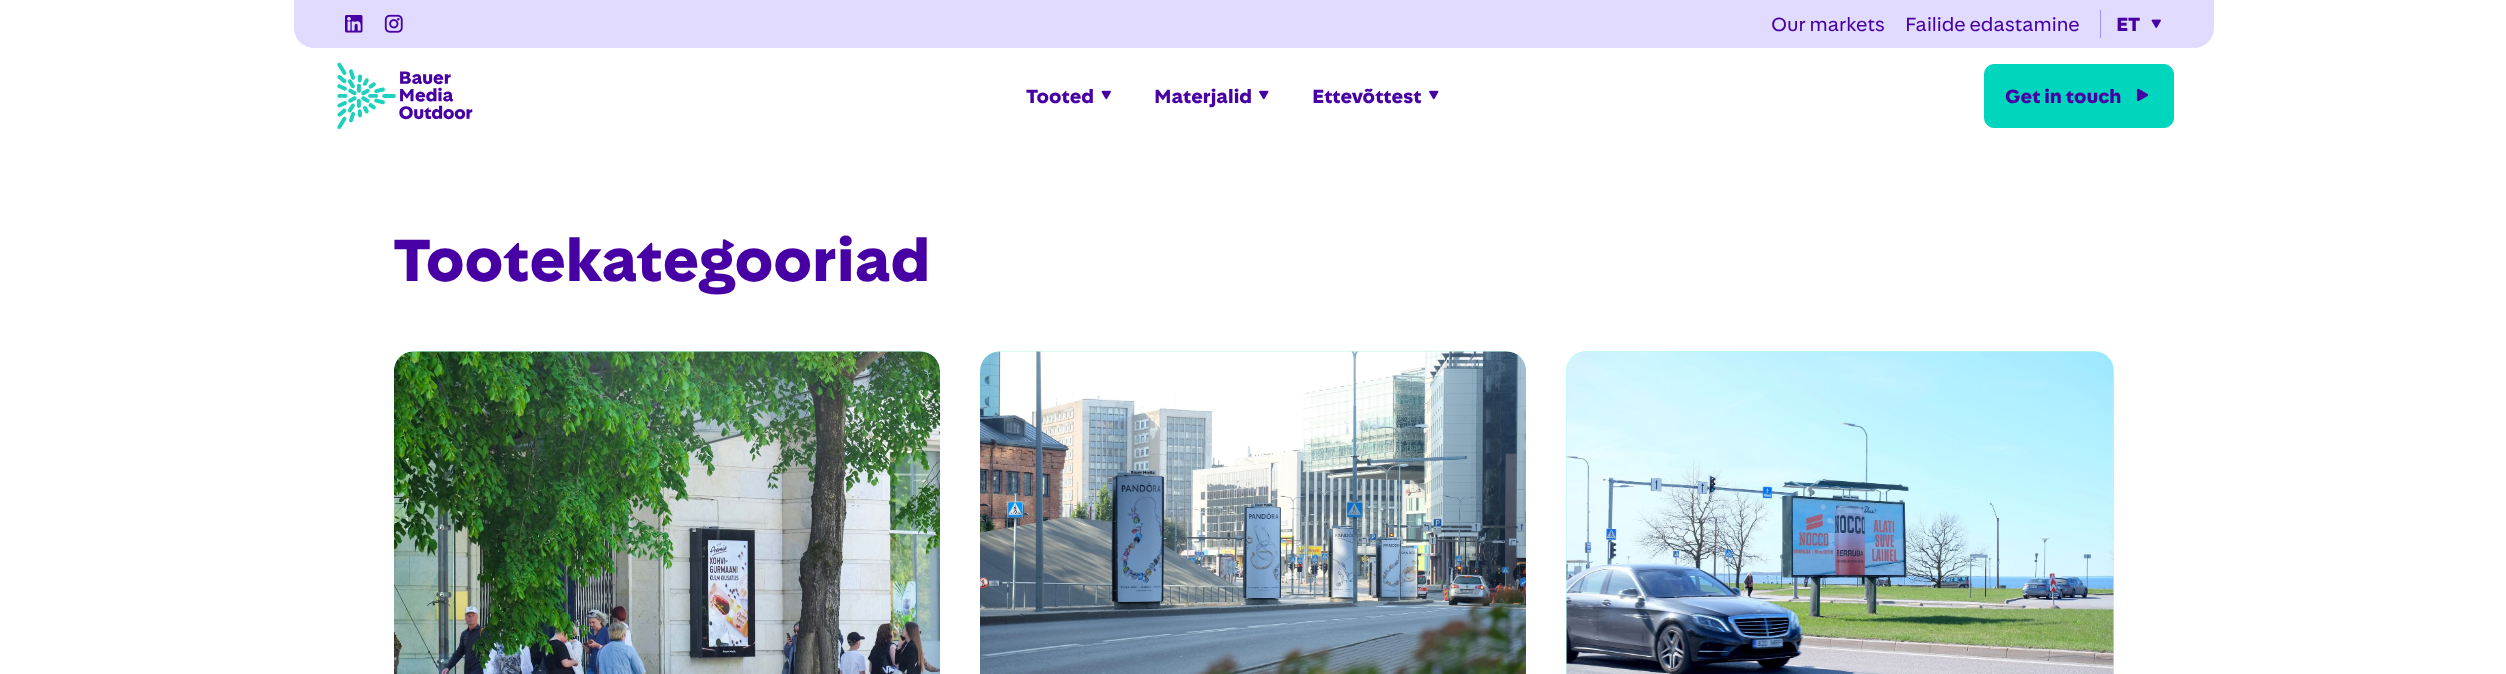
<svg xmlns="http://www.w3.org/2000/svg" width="2506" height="674">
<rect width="100%" height="100%" fill="#fff"/>
<path d="M294 0h1920v28c0 11-9 20-20 20h-1880c-11 0-20-9-20-20z" fill="#e1dcff"/>
<image x="345" y="15" width="18" height="18" href="media/1.png"/>
<image x="384" y="14" width="19" height="19" href="media/2.png"/>
<text x="1771" y="31" style="font-family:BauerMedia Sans;font-size:20px;fill:#4700a3">Our markets</text>
<text x="1905" y="31" style="font-family:BauerMedia Sans;font-size:20px;fill:#4700a3">Failide edastamine</text>
<rect x="2100" y="10" width="1" height="28" fill="#a096ff"/>
<text x="2116" y="31" style="font-family:BauerMedia Sans;font-size:20px;font-weight:bold;fill:#4700a3">ET</text>
<image x="2151" y="19" width="10" height="9" href="media/3.png"/>
<image x="337" y="62" width="136" height="67" href="media/4.png"/>
<text x="1026" y="103" style="font-family:BauerMedia Sans;font-size:20px;font-weight:bold;fill:#4700a3">Tooted</text>
<image x="1101" y="90" width="10" height="10" href="media/5.png"/>
<text x="1154" y="103" style="font-family:BauerMedia Sans;font-size:20px;font-weight:bold;fill:#4700a3">Materjalid</text>
<image x="1259" y="90" width="10" height="10" href="media/6.png"/>
<text x="1312" y="103" style="font-family:BauerMedia Sans;font-size:20px;font-weight:bold;fill:#4700a3">Ettevõttest</text>
<image x="1429" y="90" width="10" height="10" href="media/6.png"/>
<rect x="1984.5" y="64.5" width="189" height="63" rx="9.5" fill="#00d6be" stroke="#00d6be"/>
<text x="2005" y="103" style="font-family:BauerMedia Sans;font-size:20px;font-weight:bold;fill:#4700a3">Get in touch</text>
<image x="2136" y="88" width="12" height="14" href="media/7.png"/>
<text x="393" y="281" style="font-family:BauerMedia Sans;font-size:62.5px;font-weight:bold;fill:#4700a3">Tootekategooriad</text>
<rect x="394" y="351" width="546" height="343" rx="20" fill="#befaeb"/>
<image x="393" y="351" width="547" height="323" href="media/8.png"/>
<rect x="980" y="351" width="546" height="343" rx="20" fill="#befaeb"/>
<image x="980" y="351" width="546" height="323" href="media/9.png"/>
<rect x="1566" y="351" width="548" height="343" rx="20" fill="#befaeb"/>
<image x="1566" y="351" width="548" height="323" href="media/10.png"/>
</svg>
